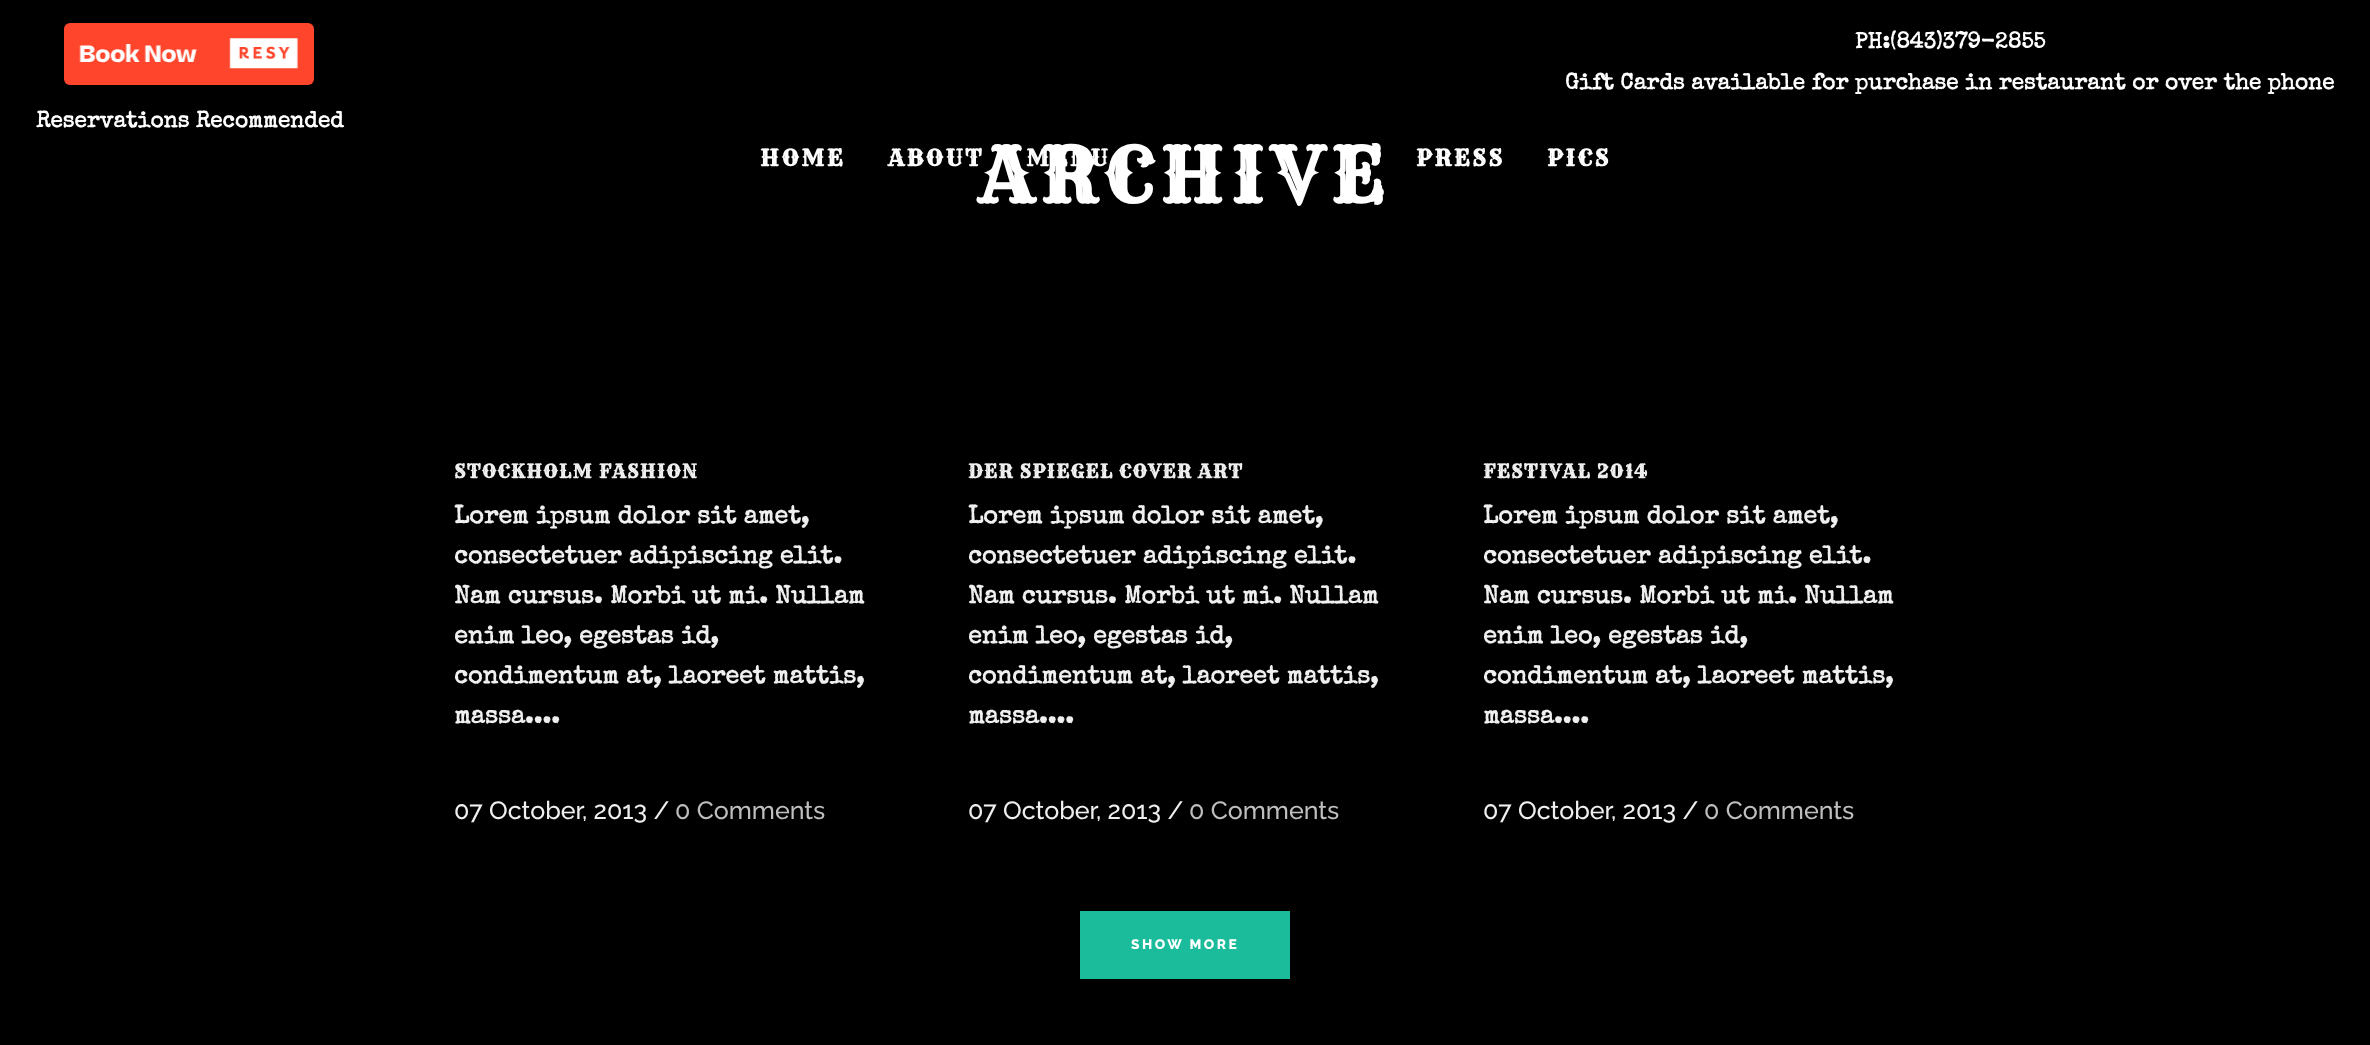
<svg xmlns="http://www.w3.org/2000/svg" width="2370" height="1045">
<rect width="100%" height="100%" fill="#000"/>
<text x="1855" y="48" style="font-family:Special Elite;font-size:22.5px;font-weight:bold;fill:#fff">PH:(843)379-2855</text>
<text x="1565" y="89" style="font-family:Special Elite;font-size:22.5px;font-weight:bold;fill:#fff">Gift Cards available for purchase in restaurant or over the phone</text>
<rect x="64" y="23" width="250" height="62" rx="6" fill="#ff462d"/>
<image x="79" y="38" width="219" height="31" href="media/1.png"/>
<text x="36" y="127" style="font-family:Special Elite;font-size:22.5px;font-weight:bold;fill:#fff">Reservations Recommended</text>
<text x="760" y="166" style="font-family:Rye;font-size:22.5px;font-weight:bold;letter-spacing:2.5px;fill:#fff">HOME</text>
<text x="979" y="203" style="font-family:Rye;font-size:75px;font-weight:bold;letter-spacing:7.5px;fill:#fff">ARCHIVE</text>
<text x="888" y="166" style="font-family:Rye;font-size:22.5px;font-weight:bold;letter-spacing:2.5px;fill:#fff">ABOUT</text>
<text x="1026" y="166" style="font-family:Rye;font-size:22.5px;font-weight:bold;letter-spacing:2.5px;fill:#fff">MENU</text>
<text x="1416" y="166" style="font-family:Rye;font-size:22.5px;font-weight:bold;letter-spacing:2.5px;fill:#fff">PRESS</text>
<text x="1547" y="166" style="font-family:Rye;font-size:22.5px;font-weight:bold;letter-spacing:2.5px;fill:#fff">PICS</text>
<text x="454" y="478" style="font-family:Rye;font-size:18.75px;font-weight:bold;letter-spacing:1.25px;fill:#efefef">STOCKHOLM FASHION</text>
<text x="454" y="523" style="font-family:Special Elite;font-size:25px;font-weight:bold;fill:#efefef">Lorem ipsum dolor sit amet,</text>
<text x="454" y="563" style="font-family:Special Elite;font-size:25px;font-weight:bold;fill:#efefef">consectetuer adipiscing elit.</text>
<text x="454" y="603" style="font-family:Special Elite;font-size:25px;font-weight:bold;fill:#efefef">Nam cursus. Morbi ut mi. Nullam</text>
<text x="454" y="643" style="font-family:Special Elite;font-size:25px;font-weight:bold;fill:#efefef">enim leo, egestas id,</text>
<text x="454" y="683" style="font-family:Special Elite;font-size:25px;font-weight:bold;fill:#efefef">condimentum at, laoreet mattis,</text>
<text x="454" y="723" style="font-family:Special Elite;font-size:25px;font-weight:bold;fill:#efefef">massa....</text>
<text x="454" y="819" style="font-family:Raleway;font-size:25px;font-weight:500;fill:#efefef">07 October, 2013 /</text>
<text x="675" y="819" style="font-family:Raleway;font-size:25px;font-weight:500;fill:#bebebe">0 Comments</text>
<text x="968" y="478" style="font-family:Rye;font-size:18.75px;font-weight:bold;letter-spacing:1.25px;fill:#efefef">DER SPIEGEL COVER ART</text>
<text x="968" y="523" style="font-family:Special Elite;font-size:25px;font-weight:bold;fill:#efefef">Lorem ipsum dolor sit amet,</text>
<text x="968" y="563" style="font-family:Special Elite;font-size:25px;font-weight:bold;fill:#efefef">consectetuer adipiscing elit.</text>
<text x="968" y="603" style="font-family:Special Elite;font-size:25px;font-weight:bold;fill:#efefef">Nam cursus. Morbi ut mi. Nullam</text>
<text x="968" y="643" style="font-family:Special Elite;font-size:25px;font-weight:bold;fill:#efefef">enim leo, egestas id,</text>
<text x="968" y="683" style="font-family:Special Elite;font-size:25px;font-weight:bold;fill:#efefef">condimentum at, laoreet mattis,</text>
<text x="968" y="723" style="font-family:Special Elite;font-size:25px;font-weight:bold;fill:#efefef">massa....</text>
<text x="968" y="819" style="font-family:Raleway;font-size:25px;font-weight:500;fill:#efefef">07 October, 2013 /</text>
<text x="1189" y="819" style="font-family:Raleway;font-size:25px;font-weight:500;fill:#bebebe">0 Comments</text>
<text x="1483" y="478" style="font-family:Rye;font-size:18.75px;font-weight:bold;letter-spacing:1.25px;fill:#efefef">FESTIVAL 2014</text>
<text x="1483" y="523" style="font-family:Special Elite;font-size:25px;font-weight:bold;fill:#efefef">Lorem ipsum dolor sit amet,</text>
<text x="1483" y="563" style="font-family:Special Elite;font-size:25px;font-weight:bold;fill:#efefef">consectetuer adipiscing elit.</text>
<text x="1483" y="603" style="font-family:Special Elite;font-size:25px;font-weight:bold;fill:#efefef">Nam cursus. Morbi ut mi. Nullam</text>
<text x="1483" y="643" style="font-family:Special Elite;font-size:25px;font-weight:bold;fill:#efefef">enim leo, egestas id,</text>
<text x="1483" y="683" style="font-family:Special Elite;font-size:25px;font-weight:bold;fill:#efefef">condimentum at, laoreet mattis,</text>
<text x="1483" y="723" style="font-family:Special Elite;font-size:25px;font-weight:bold;fill:#efefef">massa....</text>
<text x="1483" y="819" style="font-family:Raleway;font-size:25px;font-weight:500;fill:#efefef">07 October, 2013 /</text>
<text x="1704" y="819" style="font-family:Raleway;font-size:25px;font-weight:500;fill:#bebebe">0 Comments</text>
<rect x="1080" y="911" width="210" height="68" fill="#1abc9c"/>
<text x="1131" y="949" style="font-family:Raleway;font-size:13.75px;font-weight:800;letter-spacing:2.5px;fill:#fff">SHOW MORE</text>
</svg>
